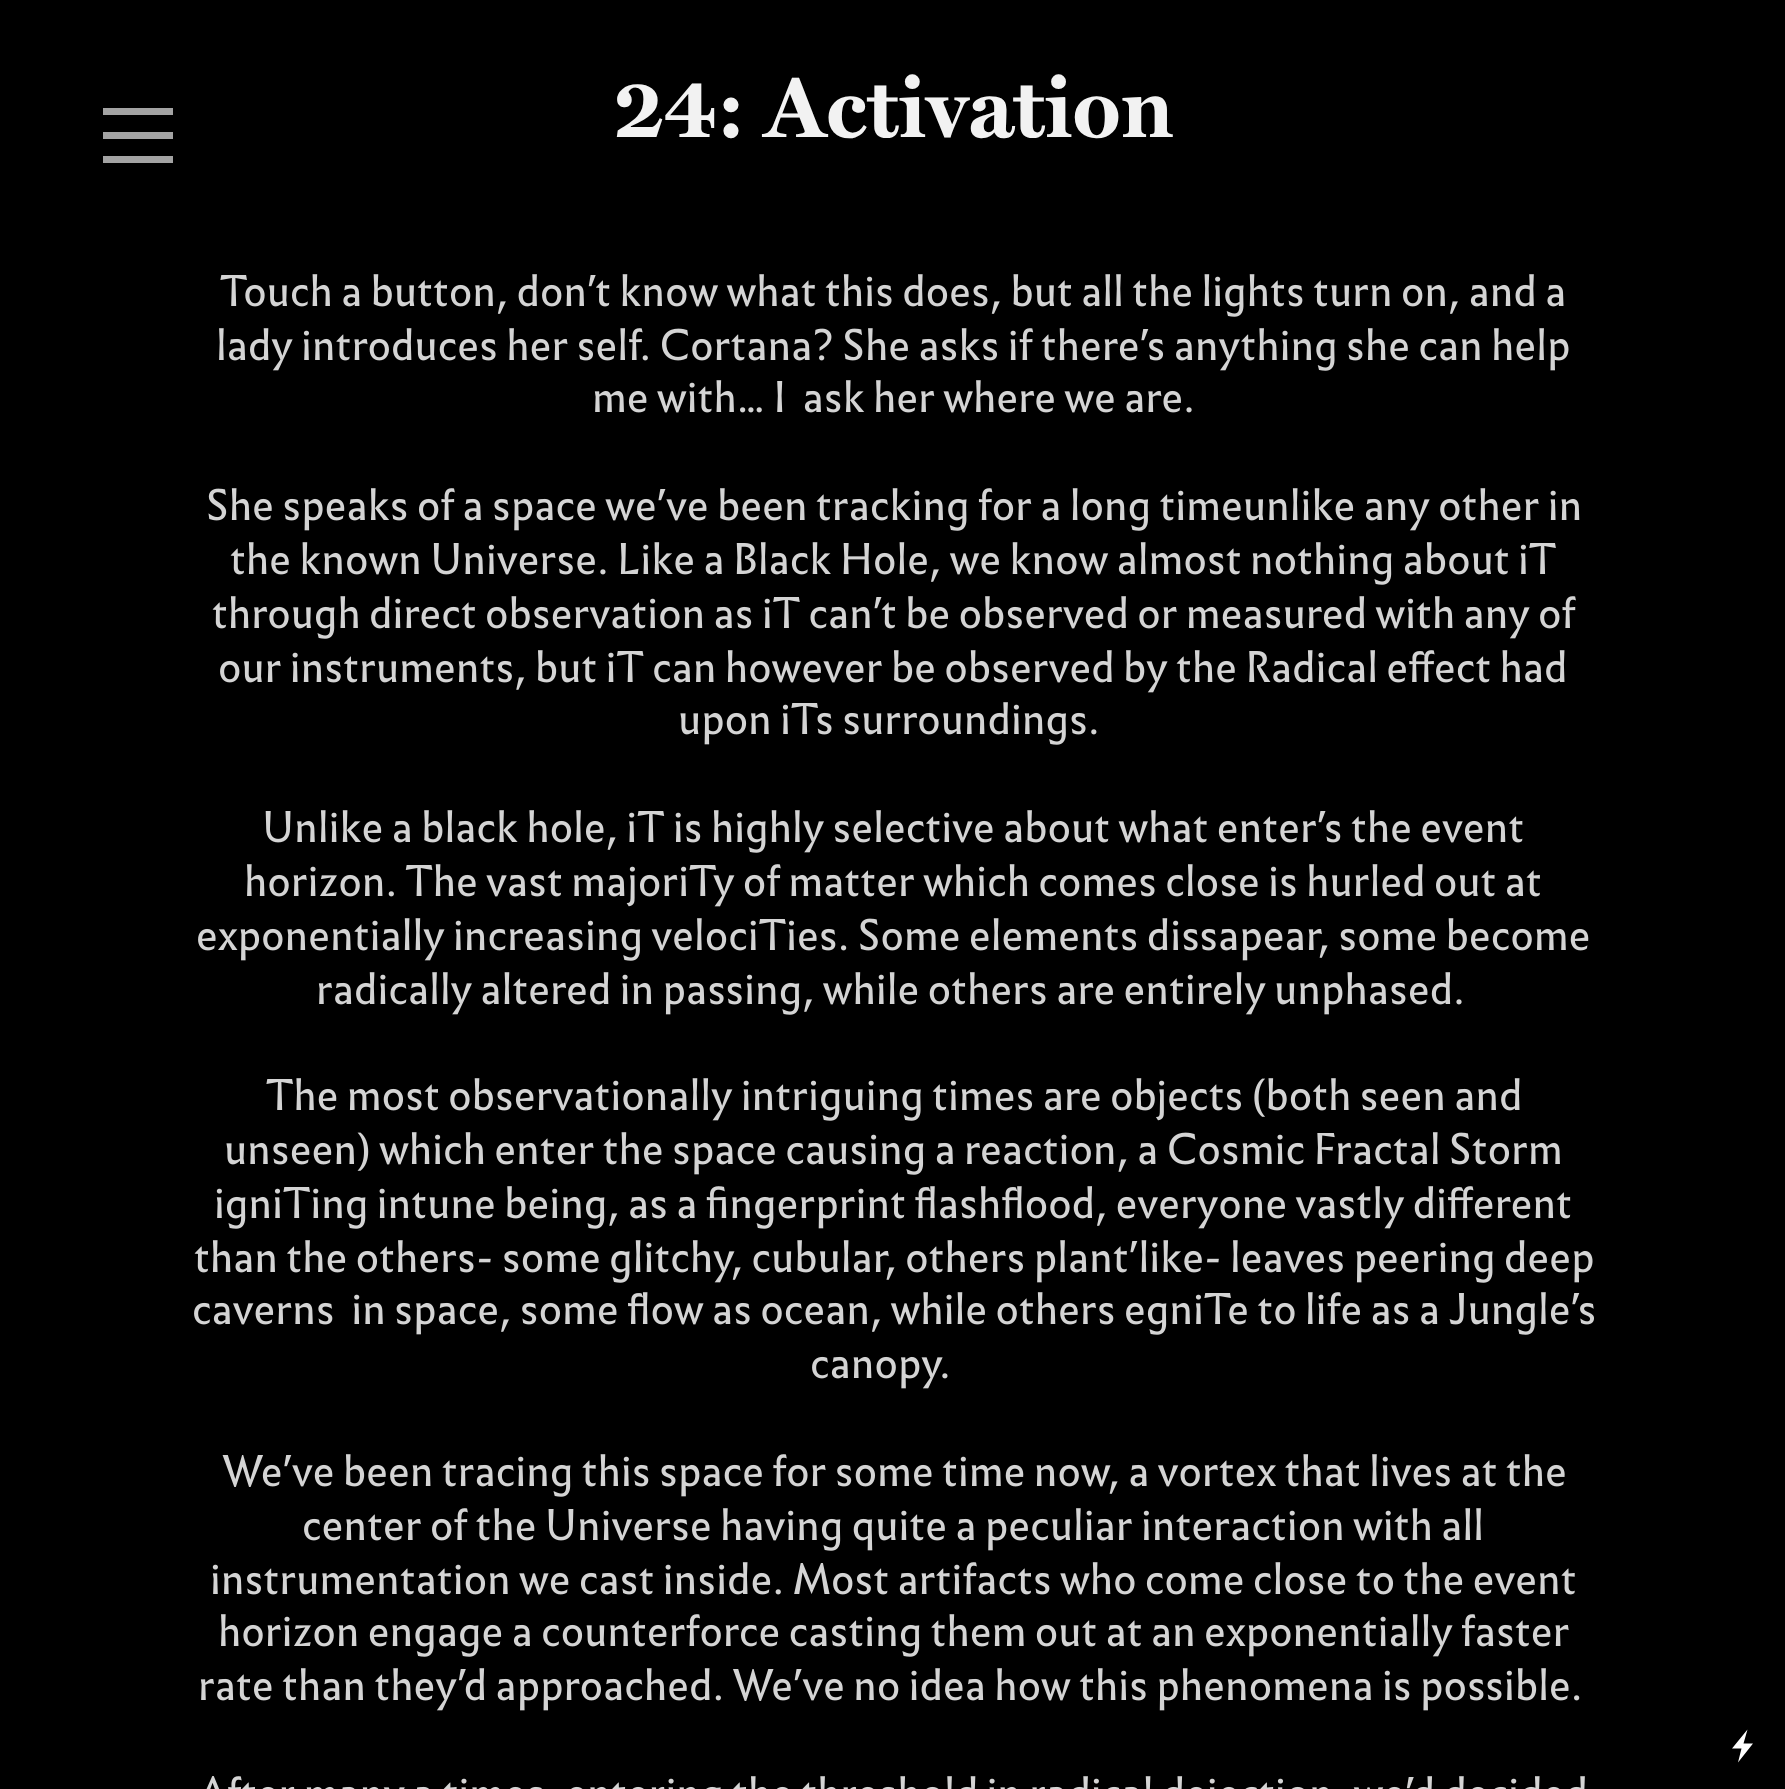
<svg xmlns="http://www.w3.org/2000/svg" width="1785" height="1789">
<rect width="100%" height="100%" fill="#000"/>
<path d="M173 108v7h-70v-7zm0 24v7h-70v-7zm0 24v7h-70v-7z" fill="#a3a3a3"/>
<text x="613" y="137" style="font-family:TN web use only;font-size:85.25px;font-weight:bold;fill:#f2f2f2">24: Activation</text>
<image x="220" y="274" width="1344" height="43" href="media/1.png"/>
<image x="219" y="328" width="1350" height="43" href="media/2.png"/>
<image x="594" y="380" width="598" height="33" href="media/3.png"/>
<image x="208" y="488" width="1372" height="43" href="media/4.png"/>
<image x="230" y="542" width="1326" height="43" href="media/5.png"/>
<image x="212" y="596" width="1364" height="43" href="media/6.png"/>
<image x="220" y="650" width="1345" height="43" href="media/7.png"/>
<image x="680" y="702" width="417" height="43" href="media/8.png"/>
<image x="265" y="810" width="1258" height="43" href="media/9.png"/>
<image x="247" y="864" width="1293" height="43" href="media/10.png"/>
<image x="198" y="918" width="1391" height="43" href="media/11.png"/>
<image x="318" y="972" width="1144" height="43" href="media/12.png"/>
<image x="266" y="1078" width="1254" height="43" href="media/13.png"/>
<image x="226" y="1132" width="1334" height="43" href="media/14.png"/>
<image x="216" y="1186" width="1355" height="43" href="media/15.png"/>
<image x="194" y="1240" width="1399" height="43" href="media/16.png"/>
<image x="194" y="1292" width="1400" height="43" href="media/17.png"/>
<image x="812" y="1356" width="136" height="33" href="media/18.png"/>
<image x="222" y="1454" width="1343" height="43" href="media/19.png"/>
<image x="304" y="1508" width="1177" height="43" href="media/20.png"/>
<image x="212" y="1562" width="1363" height="33" href="media/21.png"/>
<image x="221" y="1614" width="1348" height="43" href="media/22.png"/>
<image x="200" y="1668" width="1380" height="43" href="media/23.png"/>
<image x="206" y="1776" width="1379" height="13" href="media/24.png"/>
<path d="M1753 1743.5h-9.5l4-14l-15.5 19h9.5l-3.5 14z" fill="#fff"/>
</svg>
